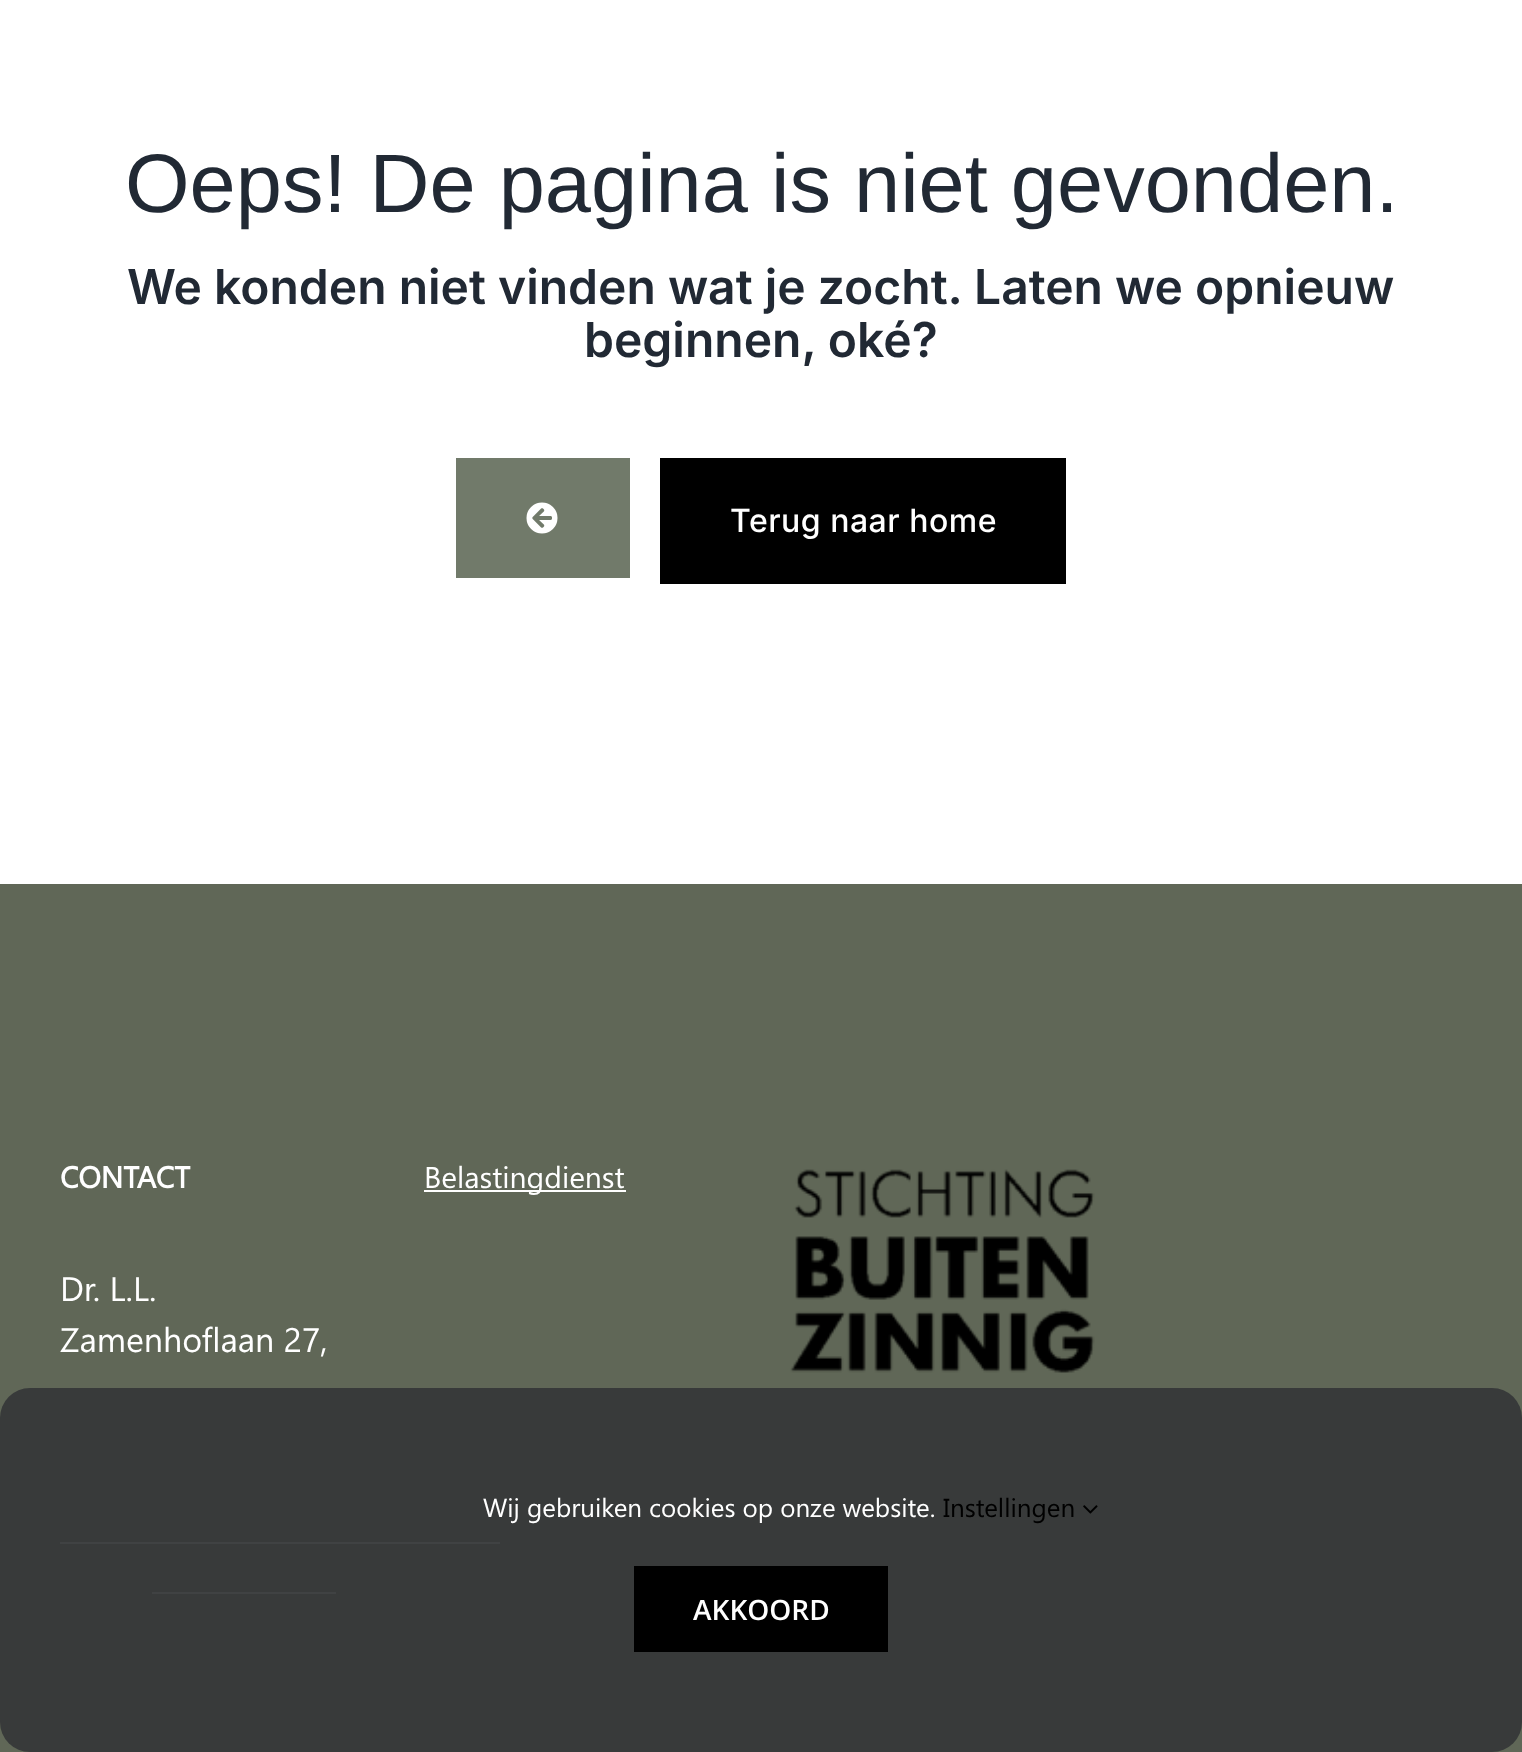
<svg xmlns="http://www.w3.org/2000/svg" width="1522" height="1752">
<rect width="100%" height="100%" fill="#fff"/>
<text x="125" y="212" style="font-family:Liberation Sans;font-size:83px;fill:#212934">Oeps! De pagina is niet gevonden.</text>
<text x="127" y="304" style="font-family:Inter;font-size:48px;font-weight:600;fill:#212934">We konden niet vinden wat je zocht. Laten we opnieuw</text>
<text x="584" y="357" style="font-family:Inter;font-size:48px;font-weight:600;fill:#212934">beginnen, oké?</text>
<rect x="456" y="458" width="174" height="120" fill="#717a6a"/>
<image x="526" y="502" width="32" height="32" href="media/1.png"/>
<rect x="660" y="458" width="406" height="126" fill="#000"/>
<text x="730" y="532" style="font-family:Inter;font-size:32px;font-weight:500;letter-spacing:0.5px;fill:#fff">Terug naar home</text>
<rect y="884" width="1522" height="868" fill="#606757"/>
<text x="60" y="1188" style="font-family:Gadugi;font-size:30px;font-weight:bold;fill:#fff">CONTACT</text>
<text x="60" y="1301" style="font-family:Gadugi;font-size:34px;fill:#fff">Dr. L.L.</text>
<text x="60" y="1352" style="font-family:Gadugi;font-size:34px;fill:#fff">Zamenhoflaan 27,</text>
<rect x="60" y="1542" width="440" height="2" fill="#fff"/>
<rect x="152" y="1592" width="184" height="2" fill="#fff"/>
<rect x="424" y="1190" width="202" height="2" fill="#fff"/>
<text x="424" y="1188" style="font-family:Gadugi;font-size:30px;fill:#fff">Belastingdienst</text>
<image x="790" y="1169" width="305" height="204" href="media/2.png"/>
<rect y="1388" width="1522" height="364" rx="30" fill="#363839f2"/>
<text x="483" y="1517" style="font-family:Gadugi;font-size:26px;fill:#fff">Wij gebruiken cookies op onze website.</text>
<text x="943" y="1517" style="font-family:Gadugi;font-size:26px;fill:#000">Instellingen</text>
<image x="1083" y="1505" width="15" height="9" href="media/3.png"/>
<rect x="634" y="1566" width="254" height="86" fill="#000"/>
<text x="693" y="1620" style="font-family:Open Sans;font-size:28px;font-weight:600;fill:#fff">AKKOORD</text>
</svg>
